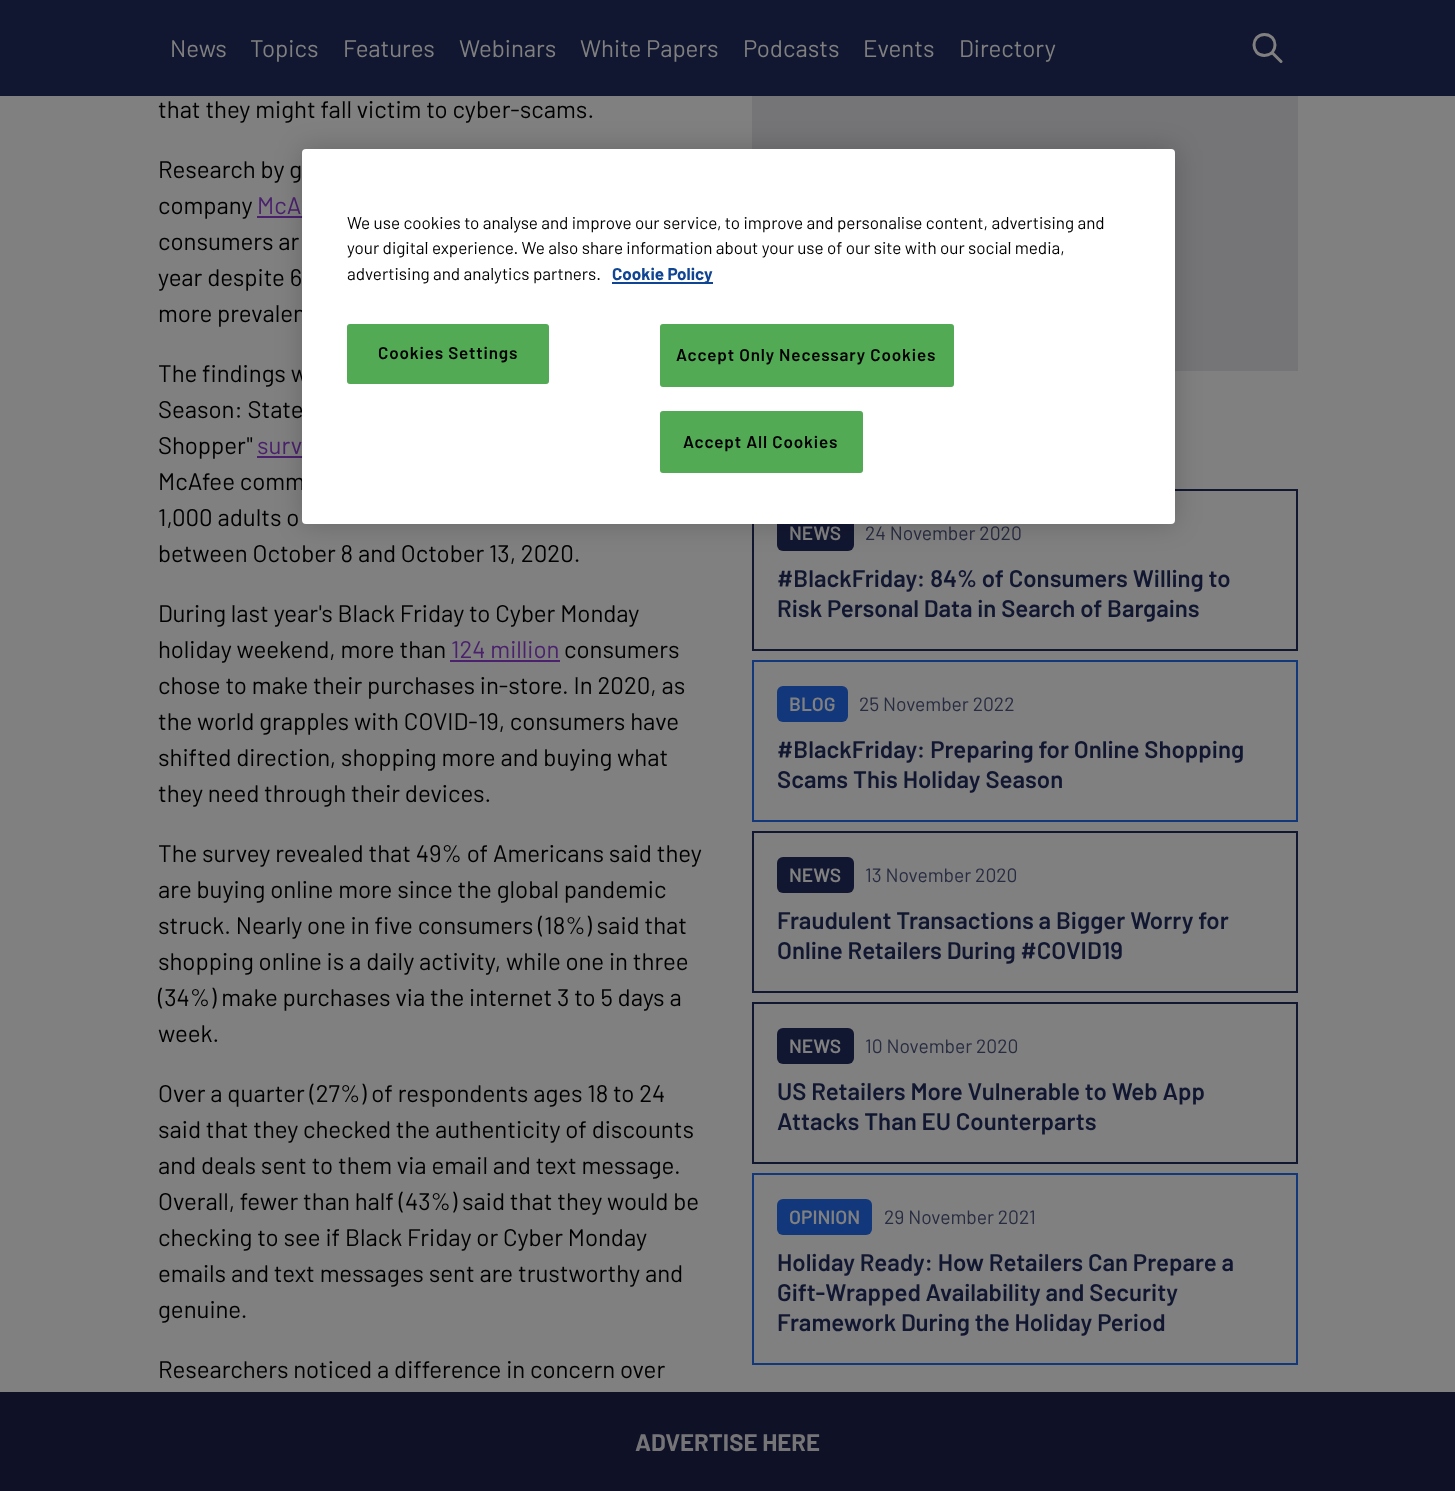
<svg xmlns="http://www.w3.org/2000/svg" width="1455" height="1491">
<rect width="100%" height="100%" fill="#808080"/>
<rect width="1455" height="96" fill="#121731"/>
<text x="170" y="57" style="font-family:Barlow;font-size:24px;fill:#808080">News</text>
<text x="250" y="57" style="font-family:Barlow;font-size:24px;fill:#808080">Topics</text>
<text x="343" y="57" style="font-family:Barlow;font-size:24px;fill:#808080">Features</text>
<text x="459" y="57" style="font-family:Barlow;font-size:24px;fill:#808080">Webinars</text>
<text x="580" y="57" style="font-family:Barlow;font-size:24px;fill:#808080">White Papers</text>
<text x="743" y="57" style="font-family:Barlow;font-size:24px;fill:#808080">Podcasts</text>
<text x="863" y="57" style="font-family:Barlow;font-size:24px;fill:#808080">Events</text>
<text x="959" y="57" style="font-family:Barlow;font-size:24px;fill:#808080">Directory</text>
<path d="M1272 52.5l9 9m-16.5-6c-14 0-14-21 0-21c14 0 14 21 0 21z" fill="none" stroke="#808080" stroke-width="3" stroke-linecap="round" stroke-linejoin="round"/>
<text x="158" y="118" style="font-family:Barlow;font-size:24px;fill:#000">that they might fall victim to cyber-scams.</text>
<text x="158" y="178" style="font-family:Barlow;font-size:24px;fill:#000">Research by g</text>
<text x="158" y="214" style="font-family:Barlow;font-size:24px;fill:#000">company</text>
<text x="257" y="214" style="font-family:Barlow;font-size:24px;fill:#4b216e">McA</text>
<rect x="257" y="216" width="45" height="2" fill="#4b216e"/>
<text x="158" y="250" style="font-family:Barlow;font-size:24px;fill:#000">consumers ar</text>
<text x="158" y="286" style="font-family:Barlow;font-size:24px;fill:#000">year despite 6</text>
<text x="158" y="322" style="font-family:Barlow;font-size:24px;fill:#000">more prevalen</text>
<text x="158" y="382" style="font-family:Barlow;font-size:24px;fill:#000">The findings w</text>
<text x="158" y="418" style="font-family:Barlow;font-size:24px;fill:#000">Season: State</text>
<text x="158" y="454" style="font-family:Barlow;font-size:24px;fill:#000">Shopper"</text>
<text x="257" y="454" style="font-family:Barlow;font-size:24px;fill:#4b216e">surv</text>
<rect x="257" y="456" width="45" height="2" fill="#4b216e"/>
<text x="158" y="490" style="font-family:Barlow;font-size:24px;fill:#000">McAfee comm</text>
<text x="158" y="526" style="font-family:Barlow;font-size:24px;fill:#000">1,000 adults o</text>
<text x="158" y="562" style="font-family:Barlow;font-size:24px;fill:#000">between October 8 and October 13, 2020.</text>
<text x="158" y="622" style="font-family:Barlow;font-size:24px;fill:#000">During last year's Black Friday to Cyber Monday</text>
<text x="158" y="658" style="font-family:Barlow;font-size:24px;fill:#000">holiday weekend, more than</text>
<text x="451" y="658" style="font-family:Barlow;font-size:24px;fill:#4b216e">124 million</text>
<rect x="450" y="660" width="110" height="2" fill="#4b216e"/>
<text x="564" y="658" style="font-family:Barlow;font-size:24px;fill:#000">consumers</text>
<text x="158" y="694" style="font-family:Barlow;font-size:24px;fill:#000">chose to make their purchases in-store. In 2020, as</text>
<text x="158" y="730" style="font-family:Barlow;font-size:24px;fill:#000">the world grapples with COVID-19, consumers have</text>
<text x="158" y="766" style="font-family:Barlow;font-size:24px;fill:#000">shifted direction, shopping more and buying what</text>
<text x="158" y="802" style="font-family:Barlow;font-size:24px;fill:#000">they need through their devices.</text>
<text x="158" y="862" style="font-family:Barlow;font-size:24px;fill:#000">The survey revealed that 49% of Americans said they</text>
<text x="158" y="898" style="font-family:Barlow;font-size:24px;fill:#000">are buying online more since the global pandemic</text>
<text x="158" y="934" style="font-family:Barlow;font-size:24px;fill:#000">struck. Nearly one in five consumers (18%) said that</text>
<text x="158" y="970" style="font-family:Barlow;font-size:24px;fill:#000">shopping online is a daily activity, while one in three</text>
<text x="158" y="1006" style="font-family:Barlow;font-size:24px;fill:#000">(34%) make purchases via the internet 3 to 5 days a</text>
<text x="158" y="1042" style="font-family:Barlow;font-size:24px;fill:#000">week.</text>
<text x="158" y="1102" style="font-family:Barlow;font-size:24px;fill:#000">Over a quarter (27%) of respondents ages 18 to 24</text>
<text x="158" y="1138" style="font-family:Barlow;font-size:24px;fill:#000">said that they checked the authenticity of discounts</text>
<text x="158" y="1174" style="font-family:Barlow;font-size:24px;fill:#000">and deals sent to them via email and text message.</text>
<text x="158" y="1210" style="font-family:Barlow;font-size:24px;fill:#000">Overall, fewer than half (43%) said that they would be</text>
<text x="158" y="1246" style="font-family:Barlow;font-size:24px;fill:#000">checking to see if Black Friday or Cyber Monday</text>
<text x="158" y="1282" style="font-family:Barlow;font-size:24px;fill:#000">emails and text messages sent are trustworthy and</text>
<text x="158" y="1318" style="font-family:Barlow;font-size:24px;fill:#000">genuine.</text>
<text x="158" y="1378" style="font-family:Barlow;font-size:24px;fill:#000">Researchers noticed a difference in concern over</text>
<rect x="752" y="96" width="546" height="275" fill="#757578"/>
<rect x="753" y="490" width="544" height="160" fill="none" stroke="#121731" stroke-width="2"/>
<rect x="777" y="515" width="77" height="36" rx="6" fill="#121731"/>
<text x="789" y="540" style="font-family:Barlow;font-size:19.25px;font-weight:600;fill:#808080">NEWS</text>
<text x="865" y="540" style="font-family:Barlow;font-size:19.25px;fill:#282c41">24 November 2020</text>
<text x="777" y="587" style="font-family:Barlow;font-size:24px;font-weight:600;fill:#121731">#BlackFriday: 84% of Consumers Willing to</text>
<text x="777" y="617" style="font-family:Barlow;font-size:24px;font-weight:600;fill:#121731">Risk Personal Data in Search of Bargains</text>
<rect x="753" y="661" width="544" height="160" fill="none" stroke="#12377b" stroke-width="2"/>
<rect x="777" y="686" width="71" height="36" rx="6" fill="#12377b"/>
<text x="789" y="711" style="font-family:Barlow;font-size:19.25px;font-weight:600;fill:#808080">BLOG</text>
<text x="859" y="711" style="font-family:Barlow;font-size:19.25px;fill:#282c41">25 November 2022</text>
<text x="777" y="758" style="font-family:Barlow;font-size:24px;font-weight:600;fill:#121731">#BlackFriday: Preparing for Online Shopping</text>
<text x="777" y="788" style="font-family:Barlow;font-size:24px;font-weight:600;fill:#121731">Scams This Holiday Season</text>
<rect x="753" y="832" width="544" height="160" fill="none" stroke="#121731" stroke-width="2"/>
<rect x="777" y="857" width="77" height="36" rx="6" fill="#121731"/>
<text x="789" y="882" style="font-family:Barlow;font-size:19.25px;font-weight:600;fill:#808080">NEWS</text>
<text x="865" y="882" style="font-family:Barlow;font-size:19.25px;fill:#282c41">13 November 2020</text>
<text x="777" y="929" style="font-family:Barlow;font-size:24px;font-weight:600;fill:#121731">Fraudulent Transactions a Bigger Worry for</text>
<text x="777" y="959" style="font-family:Barlow;font-size:24px;font-weight:600;fill:#121731">Online Retailers During #COVID19</text>
<rect x="753" y="1003" width="544" height="160" fill="none" stroke="#121731" stroke-width="2"/>
<rect x="777" y="1028" width="77" height="36" rx="6" fill="#121731"/>
<text x="789" y="1053" style="font-family:Barlow;font-size:19.25px;font-weight:600;fill:#808080">NEWS</text>
<text x="865" y="1053" style="font-family:Barlow;font-size:19.25px;fill:#282c41">10 November 2020</text>
<text x="777" y="1100" style="font-family:Barlow;font-size:24px;font-weight:600;fill:#121731">US Retailers More Vulnerable to Web App</text>
<text x="777" y="1130" style="font-family:Barlow;font-size:24px;font-weight:600;fill:#121731">Attacks Than EU Counterparts</text>
<rect x="753" y="1174" width="544" height="190" fill="none" stroke="#12377b" stroke-width="2"/>
<rect x="777" y="1199" width="95" height="36" rx="6" fill="#12377b"/>
<text x="789" y="1224" style="font-family:Barlow;font-size:19.25px;font-weight:600;fill:#808080">OPINION</text>
<text x="884" y="1224" style="font-family:Barlow;font-size:19.25px;fill:#282c41">29 November 2021</text>
<text x="777" y="1271" style="font-family:Barlow;font-size:24px;font-weight:600;fill:#121731">Holiday Ready: How Retailers Can Prepare a</text>
<text x="777" y="1301" style="font-family:Barlow;font-size:24px;font-weight:600;fill:#121731">Gift-Wrapped Availability and Security</text>
<text x="777" y="1331" style="font-family:Barlow;font-size:24px;font-weight:600;fill:#121731">Framework During the Holiday Period</text>
<rect x="302" y="149" width="873" height="375" rx="4" fill="#00000033" filter="blur(13.5px)"/>
<rect x="302" y="149" width="873" height="375" rx="4" fill="#fff"/>
<text x="347" y="229" style="font-family:Barlow;font-size:17.05px;fill:#000">We use cookies to analyse and improve our service, to improve and personalise content, advertising and</text>
<text x="347" y="254" style="font-family:Barlow;font-size:17.05px;fill:#000">your digital experience. We also share information about your use of our site with our social media,</text>
<text x="347" y="280" style="font-family:Barlow;font-size:17.05px;fill:#000">advertising and analytics partners.</text>
<rect x="612" y="282" width="101" height="2" fill="#104593"/>
<text x="612" y="280" style="font-family:Barlow;font-size:17.05px;font-weight:bold;fill:#104593">Cookie Policy</text>
<rect x="347" y="324" width="202" height="60" rx="3" fill="#52aa55"/>
<text x="378" y="359" style="font-family:Barlow;font-size:17.05px;font-weight:600;letter-spacing:0.85px;fill:#000">Cookies Settings</text>
<rect x="661" y="325" width="292" height="61" rx="2" fill="#52aa55" stroke="#52aa55" stroke-width="2"/>
<text x="676" y="361" style="font-family:Barlow;font-size:17.05px;font-weight:600;letter-spacing:0.85px;fill:#000">Accept Only Necessary Cookies</text>
<rect x="661" y="412" width="201" height="60" rx="2" fill="#52aa55" stroke="#52aa55" stroke-width="2"/>
<text x="683" y="448" style="font-family:Barlow;font-size:17.05px;font-weight:600;letter-spacing:0.85px;fill:#000">Accept All Cookies</text>
<rect y="1392" width="1455" height="99" fill="#0f1227"/>
<text x="635" y="1451" style="font-family:Barlow;font-size:24px;font-weight:bold;fill:#757578">ADVERTISE HERE</text>
</svg>
